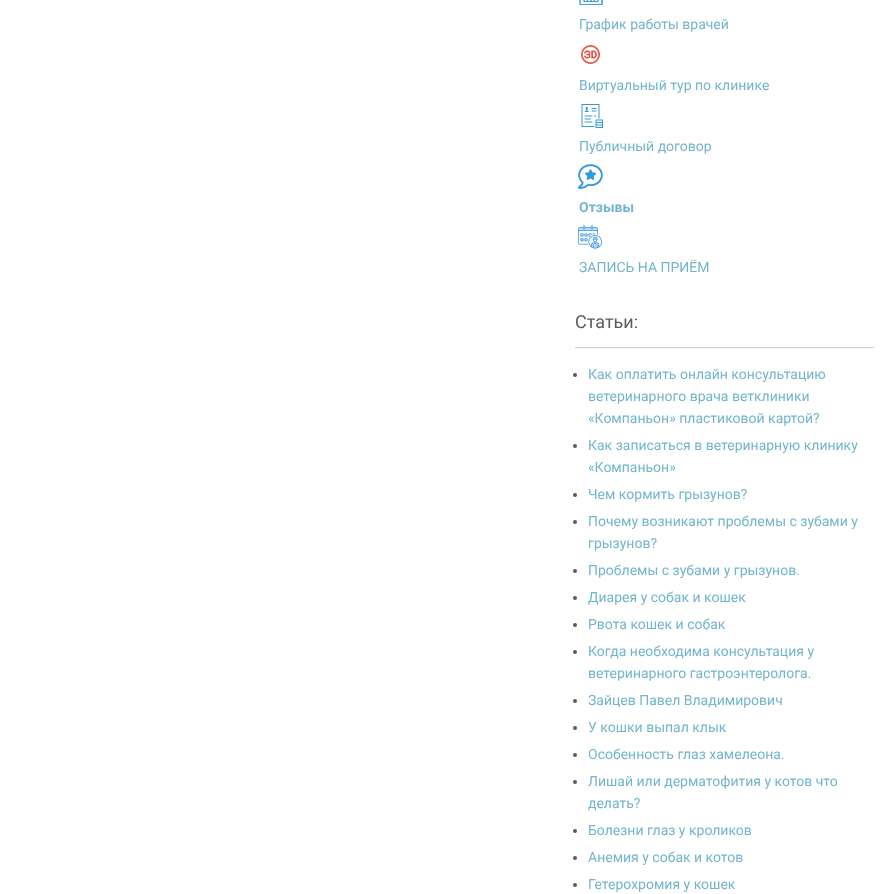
<svg xmlns="http://www.w3.org/2000/svg" width="894" height="894">
<rect width="100%" height="100%" fill="#fff"/>
<image x="579" y="0" width="24" height="5" href="media/1.png"/>
<text x="579" y="29" style="font-family:Roboto;font-size:14px;fill:#72b5cc">График работы врачей</text>
<image x="581" y="45" width="19" height="19" href="media/2.png"/>
<text x="579" y="90" style="font-family:Roboto;font-size:14px;fill:#72b5cc">Виртуальный тур по клинике</text>
<image x="581" y="104" width="22" height="24" href="media/3.png"/>
<text x="579" y="151" style="font-family:Roboto;font-size:14px;fill:#72b5cc">Публичный договор</text>
<image x="578" y="164" width="25" height="25" href="media/4.png"/>
<text x="579" y="212" style="font-family:Roboto;font-size:14px;font-weight:bold;fill:#72b5cc">Отзывы</text>
<image x="578" y="225" width="24" height="24" href="media/5.png"/>
<text x="579" y="272" style="font-family:Roboto;font-size:14px;fill:#72b5cc">ЗАПИСЬ НА ПРИЁМ</text>
<rect x="575" y="347" width="299" height="1" fill="#ccc"/>
<text x="575" y="328" style="font-family:Roboto;font-size:18px;fill:#5b5b5b">Статьи:</text>
<circle cx="575" cy="375" r="2" fill="#5b5b5b"/>
<text x="588" y="379" style="font-family:Roboto;font-size:14px;fill:#72b5cc">Как оплатить онлайн консультацию</text>
<text x="588" y="401" style="font-family:Roboto;font-size:14px;fill:#72b5cc">ветеринарного врача ветклиники</text>
<text x="588" y="423" style="font-family:Roboto;font-size:14px;fill:#72b5cc">«Компаньон» пластиковой картой?</text>
<circle cx="575" cy="446" r="2" fill="#5b5b5b"/>
<text x="588" y="450" style="font-family:Roboto;font-size:14px;fill:#72b5cc">Как записаться в ветеринарную клинику</text>
<text x="588" y="472" style="font-family:Roboto;font-size:14px;fill:#72b5cc">«Компаньон»</text>
<circle cx="575" cy="495" r="2" fill="#5b5b5b"/>
<text x="588" y="499" style="font-family:Roboto;font-size:14px;fill:#72b5cc">Чем кормить грызунов?</text>
<circle cx="575" cy="522" r="2" fill="#5b5b5b"/>
<text x="588" y="526" style="font-family:Roboto;font-size:14px;fill:#72b5cc">Почему возникают проблемы с зубами у</text>
<text x="588" y="548" style="font-family:Roboto;font-size:14px;fill:#72b5cc">грызунов?</text>
<circle cx="575" cy="571" r="2" fill="#5b5b5b"/>
<text x="588" y="575" style="font-family:Roboto;font-size:14px;fill:#72b5cc">Проблемы с зубами у грызунов.</text>
<circle cx="575" cy="598" r="2" fill="#5b5b5b"/>
<text x="588" y="602" style="font-family:Roboto;font-size:14px;fill:#72b5cc">Диарея у собак и кошек</text>
<circle cx="575" cy="625" r="2" fill="#5b5b5b"/>
<text x="588" y="629" style="font-family:Roboto;font-size:14px;fill:#72b5cc">Рвота кошек и собак</text>
<circle cx="575" cy="652" r="2" fill="#5b5b5b"/>
<text x="588" y="656" style="font-family:Roboto;font-size:14px;fill:#72b5cc">Когда необходима консультация у</text>
<text x="588" y="678" style="font-family:Roboto;font-size:14px;fill:#72b5cc">ветеринарного гастроэнтеролога.</text>
<circle cx="575" cy="701" r="2" fill="#5b5b5b"/>
<text x="588" y="705" style="font-family:Roboto;font-size:14px;fill:#72b5cc">Зайцев Павел Владимирович</text>
<circle cx="575" cy="728" r="2" fill="#5b5b5b"/>
<text x="588" y="732" style="font-family:Roboto;font-size:14px;fill:#72b5cc">У кошки выпал клык</text>
<circle cx="575" cy="755" r="2" fill="#5b5b5b"/>
<text x="588" y="759" style="font-family:Roboto;font-size:14px;fill:#72b5cc">Особенность глаз хамелеона.</text>
<circle cx="575" cy="782" r="2" fill="#5b5b5b"/>
<text x="588" y="786" style="font-family:Roboto;font-size:14px;fill:#72b5cc">Лишай или дерматофития у котов что</text>
<text x="588" y="808" style="font-family:Roboto;font-size:14px;fill:#72b5cc">делать?</text>
<circle cx="575" cy="831" r="2" fill="#5b5b5b"/>
<text x="588" y="835" style="font-family:Roboto;font-size:14px;fill:#72b5cc">Болезни глаз у кроликов</text>
<circle cx="575" cy="858" r="2" fill="#5b5b5b"/>
<text x="588" y="862" style="font-family:Roboto;font-size:14px;fill:#72b5cc">Анемия у собак и котов</text>
<circle cx="575" cy="885" r="2" fill="#5b5b5b"/>
<text x="588" y="889" style="font-family:Roboto;font-size:14px;fill:#72b5cc">Гетерохромия у кошек</text>
</svg>
